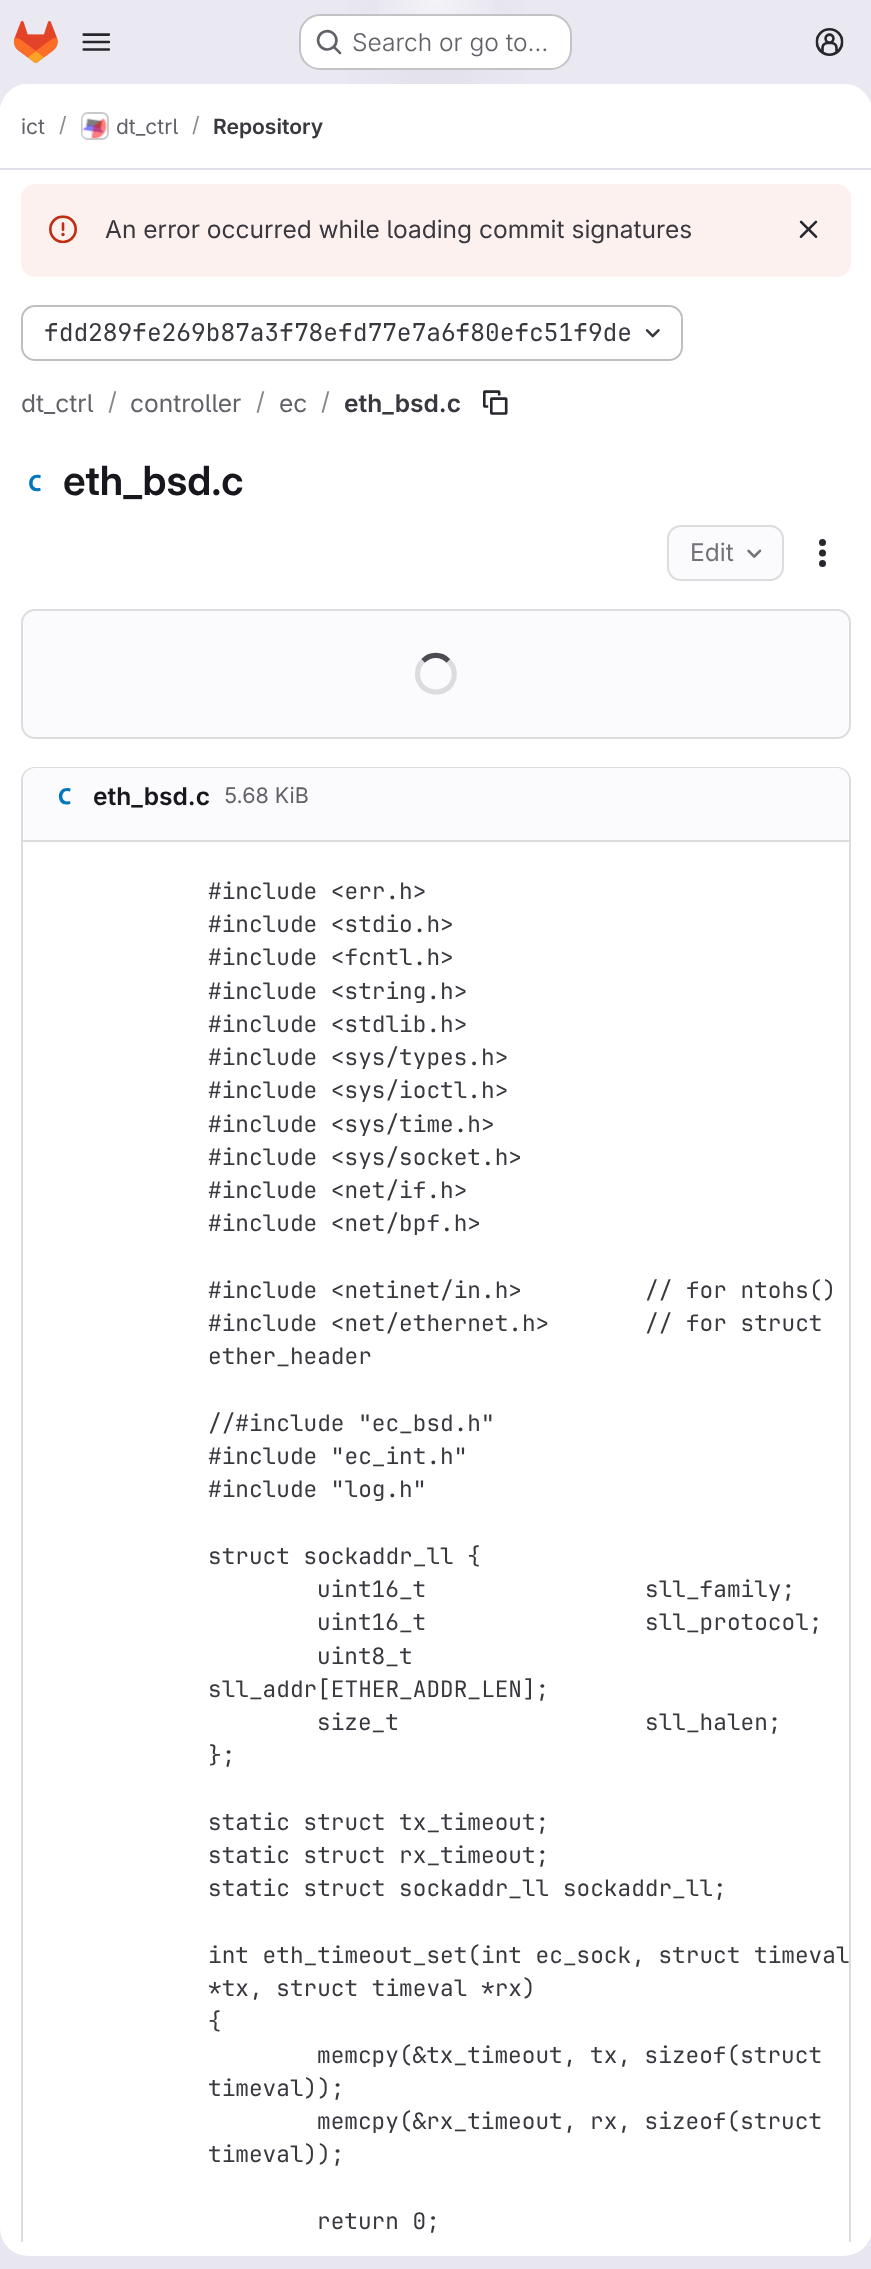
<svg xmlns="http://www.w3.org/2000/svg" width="871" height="2269">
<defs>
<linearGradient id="g1" gradientUnits="userSpaceOnUse" x1="643" y1="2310" x2="229" y2="-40"><stop offset="0" stop-color="#e8e6f0"/><stop offset="0.7" stop-color="#eae9f2"/></linearGradient>
<radialGradient id="g2" gradientUnits="userSpaceOnUse" cx="0" cy="0" r="1" gradientTransform="matrix(436 0 0 2270 436 0)"><stop offset="0" stop-color="#e4e2ed"/><stop offset="0.28" stop-color="#e4e2ed" stop-opacity="0"/></radialGradient>
<radialGradient id="g3" gradientUnits="userSpaceOnUse" cx="0" cy="0" r="1" gradientTransform="matrix(436 0 0 2270 436 0)"><stop offset="0" stop-color="#e4e2ec"/><stop offset="0.2" stop-color="#e4e2ec" stop-opacity="0"/></radialGradient>
<radialGradient id="g4" gradientUnits="userSpaceOnUse" cx="436" cy="0" r="2311"><stop offset="0" stop-color="#fff" stop-opacity="0.6"/><stop offset="0.03" stop-color="#fff" stop-opacity="0"/></radialGradient>
<clipPath id="clip1"><rect y="170" width="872" height="2072"/></clipPath>
</defs>
<rect width="100%" height="100%" fill="#fff"/>
<rect width="871" height="2269" fill="url(#g1)"/>
<rect x="347" width="178" height="84" fill="url(#g2)"/>
<rect x="400" y="14" width="72" height="68" fill="url(#g3)"/>
<rect x="377" width="118" height="14" fill="url(#g4)"/>
<image x="14" y="21" width="44" height="42" href="media/1.png"/>
<image x="82" y="33" width="29" height="18" href="media/2.png"/>
<rect x="299" y="14" width="273" height="56" rx="21" fill="#fff"/>
<rect x="300" y="15" width="271" height="54" rx="20" fill="none" stroke="#0505063d" stroke-width="2"/>
<image x="316" y="29" width="26" height="26" href="media/3.png"/>
<text x="352" y="51" style="font-family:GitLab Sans;font-size:24.5px;font-weight:300;fill:#626168">Search or go to…</text>
<image x="815" y="28" width="29" height="28" href="media/4.png"/>
<rect y="84" width="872" height="2172" rx="28" fill="#fff"/>
<path d="M28 84h816c15.5 0 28 12.5 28 28v58h-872v-58c0-15.5 12.5-28 28-28z" fill="#fff"/>
<rect y="168" width="871" height="2" fill="#e1dfec"/>
<text x="21" y="134" style="font-family:GitLab Sans;font-size:21px;fill:#626168">ict</text>
<text x="59" y="132" style="font-family:GitLab Sans;font-size:21px;fill:#89888d">/</text>
<rect x="82" y="113" width="26" height="26" rx="6" fill="none" stroke="#dcdcde" stroke-width="2"/>
<image x="82" y="114" width="25" height="25" href="media/5.png"/>
<rect x="82" y="113" width="26" height="26" rx="6" fill="none" stroke="#05050614" stroke-width="2"/>
<text x="116" y="134" style="font-family:GitLab Sans;font-size:21px;fill:#626168">dt_ctrl</text>
<text x="192" y="132" style="font-family:GitLab Sans;font-size:21px;fill:#89888d">/</text>
<text x="213" y="134" style="font-family:'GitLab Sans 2';font-size:21px;font-weight:600;fill:#3a383f">Repository</text>
<rect x="21" y="184" width="830" height="93" rx="14" fill="#fcf1ef"/>
<image x="49" y="215" width="28" height="29" href="media/6.png"/>
<text x="105" y="238" style="font-family:GitLab Sans;font-size:24.5px;fill:#3a383f">An error occurred while loading commit signatures</text>
<image x="799" y="220" width="19" height="18" href="media/7.png"/>
<rect x="22" y="306" width="660" height="54" rx="13" fill="none" stroke="#bfbfc3" stroke-width="2"/>
<text x="44" y="341" style="font-family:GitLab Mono;font-size:24.5px;fill:#3a383f">fdd289fe269b87a3f78efd77e7a6f80efc51f9de</text>
<image x="645" y="329" width="15" height="9" href="media/8.png"/>
<text x="21" y="412" style="font-family:GitLab Sans;font-size:24.5px;fill:#626168">dt_ctrl</text>
<text x="108" y="410" style="font-family:GitLab Sans;font-size:24.5px;fill:#89888d">/</text>
<text x="130" y="412" style="font-family:GitLab Sans;font-size:24.5px;fill:#626168">controller</text>
<text x="256" y="410" style="font-family:GitLab Sans;font-size:24.5px;fill:#89888d">/</text>
<text x="279" y="412" style="font-family:GitLab Sans;font-size:24.5px;fill:#626168">ec</text>
<text x="321" y="410" style="font-family:GitLab Sans;font-size:24.5px;fill:#89888d">/</text>
<text x="344" y="412" style="font-family:'GitLab Sans 2';font-size:24.5px;font-weight:600;fill:#3a383f">eth_bsd.c</text>
<image x="483" y="390" width="25" height="25" href="media/9.png"/>
<image x="29" y="474" width="12" height="18" href="media/10.png"/>
<text x="63" y="495" style="font-family:GitLab Sans;font-size:40.25px;font-weight:600;fill:#18171d">eth_bsd.c</text>
<rect x="668" y="526" width="115" height="54" rx="13" fill="#fbfafd" stroke="#dcdcde" stroke-width="2"/>
<text x="690" y="561" style="font-family:GitLab Sans;font-size:24.5px;fill:#737278">Edit</text>
<image x="747" y="549" width="15" height="9" href="media/11.png"/>
<image x="819" y="539" width="7" height="28" href="media/12.png"/>
<rect x="22" y="610" width="828" height="128" rx="13" fill="#fbfafd" stroke="#dcdcde" stroke-width="2"/>
<path d="M423 661c7-7.5 18.5-7.5 25.5 0" fill="none" stroke="#4c4b51" stroke-width="5.2"/>
<path d="M448.5 661c4.5 4 6.5 10.5 5.5 16.5c-4.5 21.5-36.5 18-36.5-3.5c0-5 2-10 5.5-13" fill="none" stroke="#dcdcde" stroke-width="5.2"/>
<g clip-path="url(#clip1)">
<path d="M35 767c-8 0-14 6-14 14v1474l2 1v-1475c0-7 5-12 12-12h802c7 0 12 5 12 12v1475l2-1v-1474c0-8-6-14-14-14z" fill="#dcdcde"/>
</g>
<path d="M35 768h802c6.5 0 12 5.5 12 12v62h-826v-62c0-6.5 5.5-12 12-12z" fill="#fbfafd"/>
<rect x="23" y="840" width="826" height="2" fill="#dcdcde"/>
<image x="58" y="788" width="13" height="17" href="media/13.png"/>
<text x="93" y="805" style="font-family:'GitLab Sans 2';font-size:24.5px;font-weight:600;fill:#18171d">eth_bsd.c</text>
<text x="224" y="803" style="font-family:GitLab Sans;font-size:21.5px;fill:#626168">5.68 KiB</text>
<text x="208" y="899" style="font-family:GitLab Mono;font-size:22.75px;fill:#3a383f">#include &lt;err.h&gt;</text>
<text x="208" y="932" style="font-family:GitLab Mono;font-size:22.75px;fill:#3a383f">#include &lt;stdio.h&gt;</text>
<text x="208" y="965" style="font-family:GitLab Mono;font-size:22.75px;fill:#3a383f">#include &lt;fcntl.h&gt;</text>
<text x="208" y="999" style="font-family:GitLab Mono;font-size:22.75px;fill:#3a383f">#include &lt;string.h&gt;</text>
<text x="208" y="1032" style="font-family:GitLab Mono;font-size:22.75px;fill:#3a383f">#include &lt;stdlib.h&gt;</text>
<text x="208" y="1065" style="font-family:GitLab Mono;font-size:22.75px;fill:#3a383f">#include &lt;sys/types.h&gt;</text>
<text x="208" y="1098" style="font-family:GitLab Mono;font-size:22.75px;fill:#3a383f">#include &lt;sys/ioctl.h&gt;</text>
<text x="208" y="1132" style="font-family:GitLab Mono;font-size:22.75px;fill:#3a383f">#include &lt;sys/time.h&gt;</text>
<text x="208" y="1165" style="font-family:GitLab Mono;font-size:22.75px;fill:#3a383f">#include &lt;sys/socket.h&gt;</text>
<text x="208" y="1198" style="font-family:GitLab Mono;font-size:22.75px;fill:#3a383f">#include &lt;net/if.h&gt;</text>
<text x="208" y="1231" style="font-family:GitLab Mono;font-size:22.75px;fill:#3a383f">#include &lt;net/bpf.h&gt;</text>
<text x="208" y="1298" style="font-family:GitLab Mono;font-size:22.75px;fill:#3a383f">#include &lt;netinet/in.h&gt;</text>
<text x="645" y="1298" style="font-family:GitLab Mono;font-size:22.75px;fill:#3a383f">// for ntohs()</text>
<text x="208" y="1331" style="font-family:GitLab Mono;font-size:22.75px;fill:#3a383f">#include &lt;net/ethernet.h&gt;</text>
<text x="645" y="1331" style="font-family:GitLab Mono;font-size:22.75px;fill:#3a383f">// for struct</text>
<text x="208" y="1364" style="font-family:GitLab Mono;font-size:22.75px;fill:#3a383f">ether_header</text>
<text x="208" y="1431" style="font-family:GitLab Mono;font-size:22.75px;fill:#3a383f">//#include "ec_bsd.h"</text>
<text x="208" y="1464" style="font-family:GitLab Mono;font-size:22.75px;fill:#3a383f">#include "ec_int.h"</text>
<text x="208" y="1497" style="font-family:GitLab Mono;font-size:22.75px;fill:#3a383f">#include "log.h"</text>
<text x="208" y="1564" style="font-family:GitLab Mono;font-size:22.75px;fill:#3a383f">struct sockaddr_ll {</text>
<text x="317" y="1597" style="font-family:GitLab Mono;font-size:22.75px;fill:#3a383f">uint16_t</text>
<text x="645" y="1597" style="font-family:GitLab Mono;font-size:22.75px;fill:#3a383f">sll_family;</text>
<text x="317" y="1630" style="font-family:GitLab Mono;font-size:22.75px;fill:#3a383f">uint16_t</text>
<text x="645" y="1630" style="font-family:GitLab Mono;font-size:22.75px;fill:#3a383f">sll_protocol;</text>
<text x="317" y="1664" style="font-family:GitLab Mono;font-size:22.75px;fill:#3a383f">uint8_t</text>
<text x="208" y="1697" style="font-family:GitLab Mono;font-size:22.75px;fill:#3a383f">sll_addr[ETHER_ADDR_LEN];</text>
<text x="317" y="1730" style="font-family:GitLab Mono;font-size:22.75px;fill:#3a383f">size_t</text>
<text x="645" y="1730" style="font-family:GitLab Mono;font-size:22.75px;fill:#3a383f">sll_halen;</text>
<text x="208" y="1763" style="font-family:GitLab Mono;font-size:22.75px;fill:#3a383f">};</text>
<text x="208" y="1830" style="font-family:GitLab Mono;font-size:22.75px;fill:#3a383f">static struct tx_timeout;</text>
<text x="208" y="1863" style="font-family:GitLab Mono;font-size:22.75px;fill:#3a383f">static struct rx_timeout;</text>
<text x="208" y="1896" style="font-family:GitLab Mono;font-size:22.75px;fill:#3a383f">static struct sockaddr_ll sockaddr_ll;</text>
<text x="208" y="1963" style="font-family:GitLab Mono;font-size:22.75px;fill:#3a383f">int eth_timeout_set(int ec_sock, struct timeval</text>
<text x="208" y="1996" style="font-family:GitLab Mono;font-size:22.75px;fill:#3a383f">*tx, struct timeval *rx)</text>
<text x="208" y="2029" style="font-family:GitLab Mono;font-size:22.75px;fill:#3a383f">{</text>
<text x="317" y="2063" style="font-family:GitLab Mono;font-size:22.75px;fill:#3a383f">memcpy(&amp;tx_timeout, tx, sizeof(struct</text>
<text x="208" y="2096" style="font-family:GitLab Mono;font-size:22.75px;fill:#3a383f">timeval));</text>
<text x="317" y="2129" style="font-family:GitLab Mono;font-size:22.75px;fill:#3a383f">memcpy(&amp;rx_timeout, rx, sizeof(struct</text>
<text x="208" y="2162" style="font-family:GitLab Mono;font-size:22.75px;fill:#3a383f">timeval));</text>
<text x="317" y="2229" style="font-family:GitLab Mono;font-size:22.75px;fill:#3a383f">return 0;</text>
</svg>
